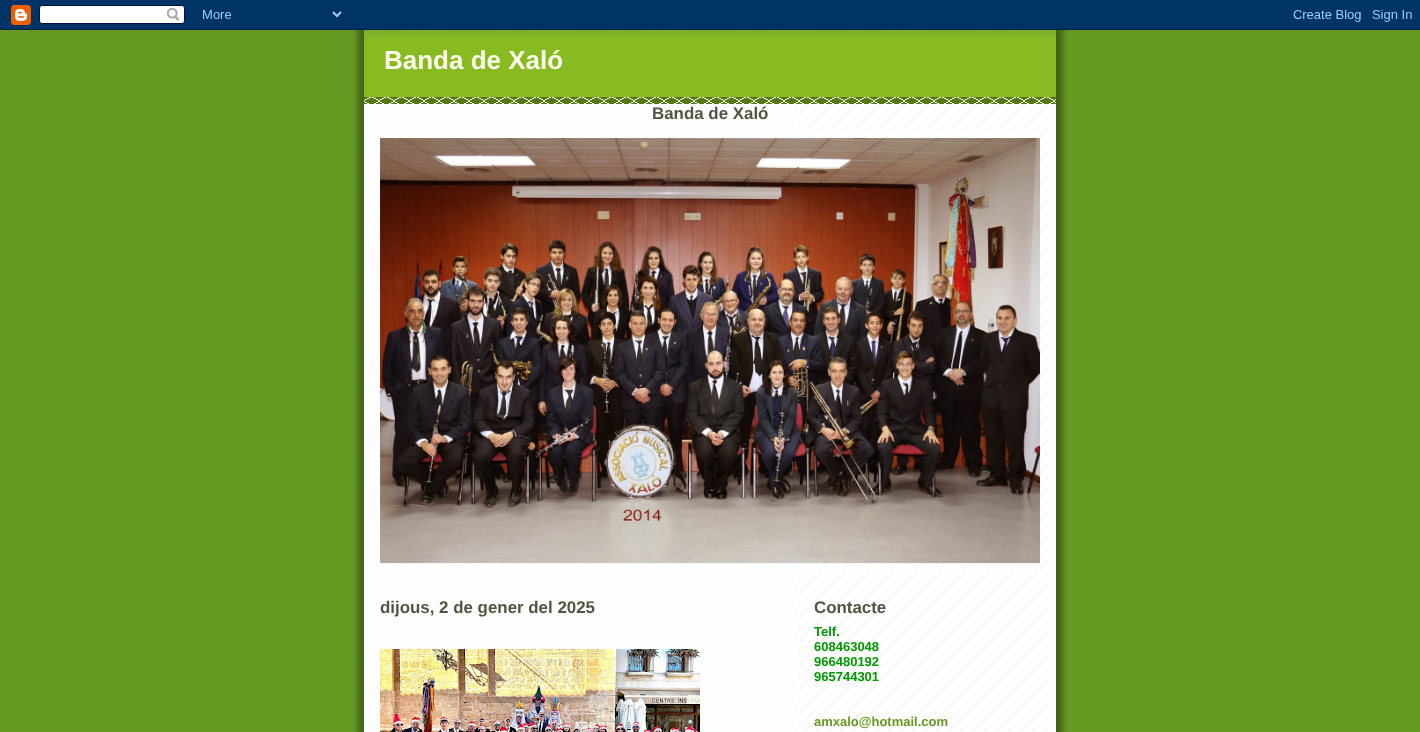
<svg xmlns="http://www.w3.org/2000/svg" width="1420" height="732">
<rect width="100%" height="100%" fill="#692"/>
<image x="353" y="30" width="715" height="702" href="media/1.png"/>
<image x="0" y="0" width="1420" height="30" href="media/2.png"/>
<rect x="364" y="104" width="1" height="628" fill="#fff"/>
<image x="798" y="104" width="250" height="628" href="media/3.png"/>
<rect x="364" y="38" width="692" height="59" fill="#8b2"/>
<image x="364" y="97" width="692" height="7" href="media/4.png"/>
<image x="364" y="30" width="692" height="8" href="media/5.png"/>
<text x="384" y="69" style="font-family:Liberation Sans;font-size:26px;font-weight:bold;fill:#ffe">Banda de Xaló</text>
<text x="652" y="119" style="font-family:Liberation Sans;font-size:16.9px;font-weight:bold;fill:#554">Banda de Xaló</text>
<image x="380" y="131" width="660" height="440" href="media/6.png"/>
<text x="380" y="613" style="font-family:Liberation Sans;font-size:16.9px;font-weight:bold;fill:#554">dijous, 2 de gener del 2025</text>
<image x="380" y="649" width="320" height="83" href="media/7.png"/>
<text x="814" y="613" style="font-family:Liberation Sans;font-size:16.9px;font-weight:bold;fill:#554">Contacte</text>
<text x="814" y="636" style="font-family:Liberation Sans;font-size:13px;font-weight:bold;fill:#090">Telf.</text>
<text x="814" y="651" style="font-family:Liberation Sans;font-size:13px;font-weight:bold;fill:#090">608463048</text>
<text x="814" y="666" style="font-family:Liberation Sans;font-size:13px;font-weight:bold;fill:#090">966480192</text>
<text x="814" y="681" style="font-family:Liberation Sans;font-size:13px;font-weight:bold;fill:#090">965744301</text>
<text x="814" y="726" style="font-family:Liberation Sans;font-size:13px;font-weight:bold;fill:#692">amxalo@hotmail.com</text>
</svg>
